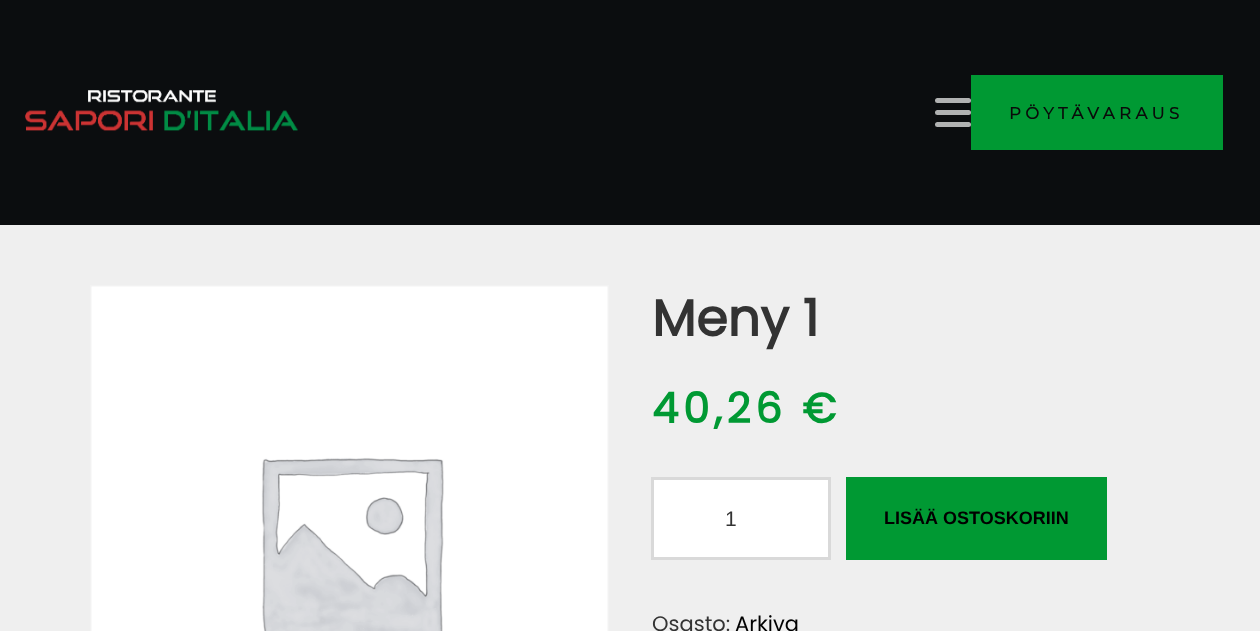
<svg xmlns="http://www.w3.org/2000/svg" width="1260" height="631">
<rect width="100%" height="100%" fill="#efefef"/>
<rect width="1260" height="225" fill="#0b0d0f"/>
<image x="25" y="89" width="273" height="42" href="media/1.png"/>
<rect x="935" y="98" width="36" height="5" rx="2.5" fill="#b1b2b2"/>
<rect x="935" y="110" width="36" height="5" rx="2.5" fill="#b1b2b2"/>
<rect x="935" y="122" width="36" height="5" rx="2.5" fill="#b1b2b2"/>
<rect x="971" y="75" width="252" height="75" fill="#093"/>
<text x="1009" y="119" style="font-family:Montserrat;font-size:16.5px;font-weight:bold;letter-spacing:4.5px;fill:#0a0a0a">PÖYTÄVARAUS</text>
<rect x="91" y="286" width="517" height="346" fill="none" stroke="#f2f2f2" stroke-width="2"/>
<image x="91" y="286" width="517" height="345" href="media/2.png"/>
<text x="652" y="336" style="font-family:Poppins;font-size:51px;font-weight:bold;fill:#333">Meny 1</text>
<text x="652" y="423" style="font-family:Poppins;font-size:42px;font-weight:bold;letter-spacing:4.5px;fill:#093">40,26 €</text>
<rect x="652.5" y="478.5" width="177" height="80" fill="#fff" stroke="#d9d9d9" stroke-width="3"/>
<text x="725" y="526" style="font-family:Liberation Sans;font-size:21px;fill:#333">1</text>
<rect x="846" y="477" width="261" height="83" fill="#093"/>
<text x="884" y="524" style="font-family:Liberation Sans;font-size:18px;font-weight:bold;fill:#000">LISÄÄ OSTOSKORIIN</text>
<text x="652" y="631" style="font-family:Poppins;font-size:21px;fill:#333">Osasto:</text>
<text x="735" y="631" style="font-family:Poppins;font-size:21px;fill:#000">Arkiva</text>
</svg>
